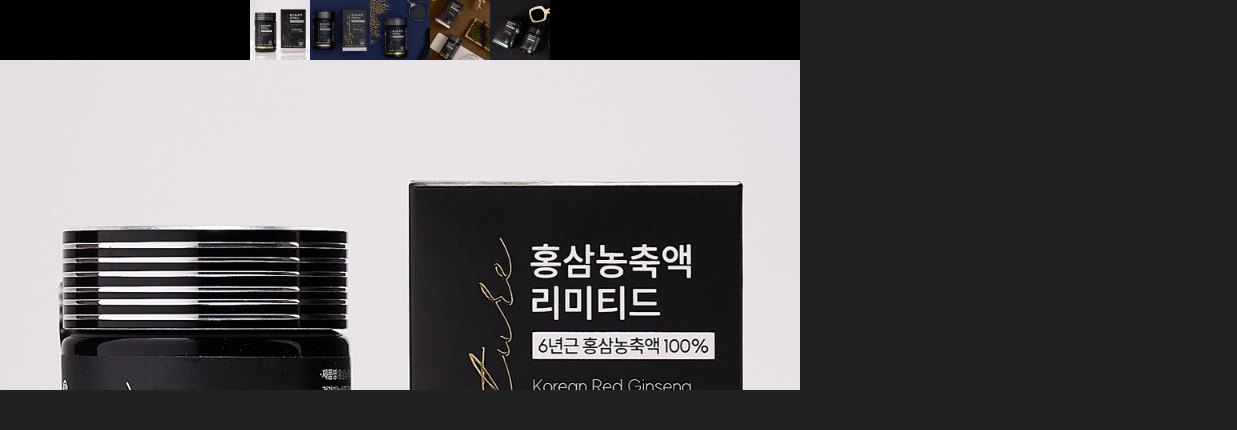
<svg xmlns="http://www.w3.org/2000/svg" width="1237" height="430">
<rect width="100%" height="100%" fill="#222"/>
<rect width="800" height="60" fill="#000"/>
<image x="250" y="0" width="60" height="60" href="media/1.png"/>
<image x="310" y="0" width="60" height="60" href="media/2.png"/>
<image x="370" y="0" width="60" height="60" href="media/3.png"/>
<image x="430" y="0" width="60" height="60" href="media/4.png"/>
<image x="490" y="0" width="60" height="60" href="media/5.png"/>
<image x="0" y="60" width="800" height="330" href="media/6.png"/>
</svg>
